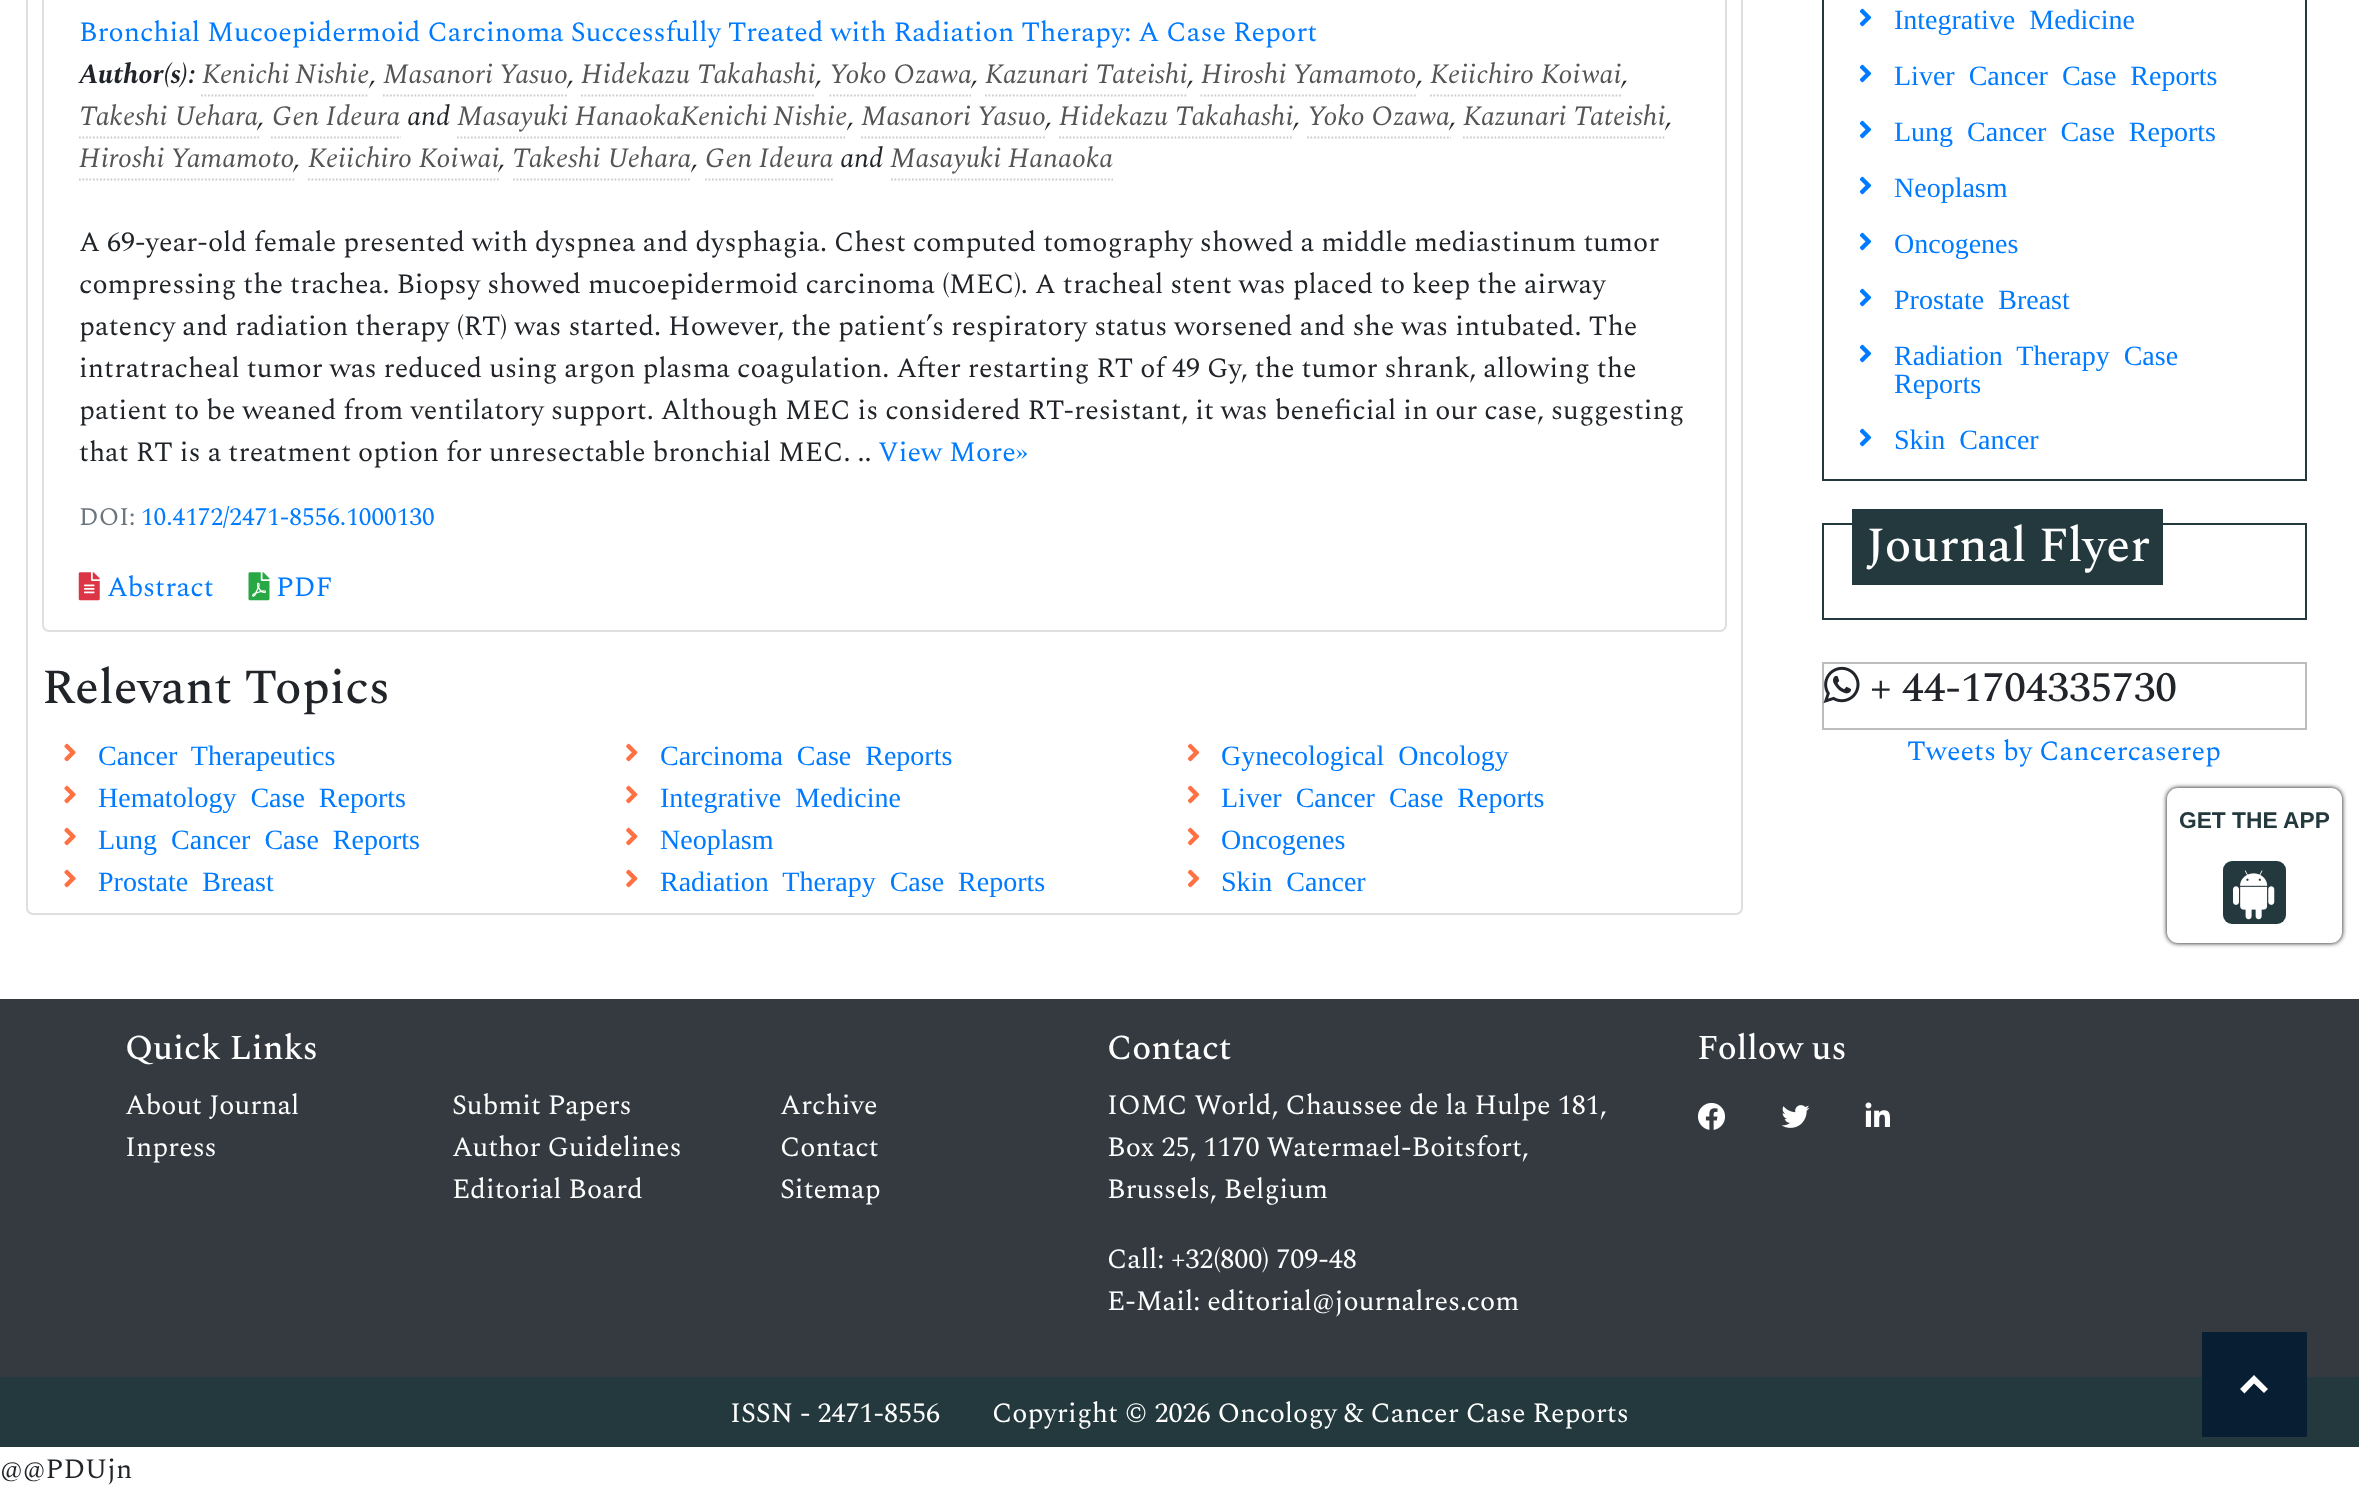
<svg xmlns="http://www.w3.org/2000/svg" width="2359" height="1488">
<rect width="100%" height="100%" fill="#fff"/>
<rect x="27" y="-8" width="1715" height="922" rx="6" fill="none" stroke="#dfdfdf" stroke-width="2"/>
<rect x="43" y="-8" width="1683" height="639" rx="6" fill="none" stroke="#dfdfdf" stroke-width="2"/>
<text x="79" y="41" style="font-family:Spectral;font-size:28px;fill:#007bff">Bronchial Mucoepidermoid Carcinoma Successfully Treated with Radiation Therapy: A Case Report</text>
<text x="79" y="83" style="font-family:Spectral;font-size:28px;font-weight:bold;font-style:italic;fill:#212529">Author(s):</text>
<text x="202" y="83" word-spacing="-1" style="font-family:Spectral;font-size:28px;font-style:italic;fill:#555">Kenichi Nishie</text>
<text x="370" y="83" style="font-family:Spectral;font-size:28px;font-style:italic;fill:#212529">,</text>
<path d="M201 95.5h168" fill="none" stroke="#ccc" stroke-width="1.8" stroke-dasharray="1.75 1.75"/>
<text x="383" y="83" word-spacing="-1" style="font-family:Spectral;font-size:28px;font-style:italic;fill:#555">Masanori Yasuo</text>
<text x="568" y="83" style="font-family:Spectral;font-size:28px;font-style:italic;fill:#212529">,</text>
<path d="M383 95.5h184" fill="none" stroke="#ccc" stroke-width="1.8" stroke-dasharray="1.75 1.75"/>
<text x="581" y="83" style="font-family:Spectral;font-size:28px;font-style:italic;fill:#555">Hidekazu Takahashi</text>
<text x="816" y="83" style="font-family:Spectral;font-size:28px;font-style:italic;fill:#212529">,</text>
<path d="M581 95.5h234.5" fill="none" stroke="#ccc" stroke-width="1.8" stroke-dasharray="1.75 1.75"/>
<text x="829" y="83" style="font-family:Spectral;font-size:28px;font-style:italic;fill:#555">Yoko Ozawa</text>
<text x="972" y="83" style="font-family:Spectral;font-size:28px;font-style:italic;fill:#212529">,</text>
<path d="M829.5 95.5h141.5" fill="none" stroke="#ccc" stroke-width="1.8" stroke-dasharray="1.75 1.75"/>
<text x="985" y="83" style="font-family:Spectral;font-size:28px;font-style:italic;fill:#555">Kazunari Tateishi</text>
<text x="1188" y="83" style="font-family:Spectral;font-size:28px;font-style:italic;fill:#212529">,</text>
<path d="M985 95.5h203" fill="none" stroke="#ccc" stroke-width="1.8" stroke-dasharray="1.75 1.75"/>
<text x="1201" y="83" word-spacing="-1" style="font-family:Spectral;font-size:28px;font-style:italic;fill:#555">Hiroshi Yamamoto</text>
<text x="1417" y="83" style="font-family:Spectral;font-size:28px;font-style:italic;fill:#212529">,</text>
<path d="M1200.5 95.5h217" fill="none" stroke="#ccc" stroke-width="1.8" stroke-dasharray="1.75 1.75"/>
<text x="1430" y="83" style="font-family:Spectral;font-size:28px;font-style:italic;fill:#555">Keiichiro Koiwai</text>
<text x="1622" y="83" style="font-family:Spectral;font-size:28px;font-style:italic;fill:#212529">,</text>
<path d="M1430 95.5h192" fill="none" stroke="#ccc" stroke-width="1.8" stroke-dasharray="1.75 1.75"/>
<text x="79" y="125" style="font-family:Spectral;font-size:28px;font-style:italic;fill:#555">Takeshi Uehara</text>
<text x="258" y="125" style="font-family:Spectral;font-size:28px;font-style:italic;fill:#212529">,</text>
<path d="M79 137.5h180" fill="none" stroke="#ccc" stroke-width="1.8" stroke-dasharray="1.75 1.75"/>
<path d="M271 137.5h130" fill="none" stroke="#ccc" stroke-width="1.8" stroke-dasharray="1.75 1.75"/>
<text x="272" y="125" style="font-family:Spectral;font-size:28px;font-style:italic;fill:#555">Gen Ideura</text>
<text x="407" y="125" style="font-family:Spectral;font-size:28px;font-style:italic;fill:#212529">and</text>
<text x="457" y="125" style="font-family:Spectral;font-size:28px;font-style:italic;fill:#555">Masayuki Hanaoka</text>
<path d="M457 137.5h222" fill="none" stroke="#ccc" stroke-width="1.8" stroke-dasharray="1.75 1.75"/>
<text x="680" y="125" word-spacing="-1" style="font-family:Spectral;font-size:28px;font-style:italic;fill:#555">Kenichi Nishie</text>
<text x="848" y="125" style="font-family:Spectral;font-size:28px;font-style:italic;fill:#212529">,</text>
<path d="M679 137.5h168" fill="none" stroke="#ccc" stroke-width="1.8" stroke-dasharray="1.75 1.75"/>
<text x="861" y="125" word-spacing="-1" style="font-family:Spectral;font-size:28px;font-style:italic;fill:#555">Masanori Yasuo</text>
<text x="1046" y="125" style="font-family:Spectral;font-size:28px;font-style:italic;fill:#212529">,</text>
<path d="M861 137.5h185.5" fill="none" stroke="#ccc" stroke-width="1.8" stroke-dasharray="1.75 1.75"/>
<text x="1059" y="125" style="font-family:Spectral;font-size:28px;font-style:italic;fill:#555">Hidekazu Takahashi</text>
<text x="1294" y="125" style="font-family:Spectral;font-size:28px;font-style:italic;fill:#212529">,</text>
<path d="M1059 137.5h234" fill="none" stroke="#ccc" stroke-width="1.8" stroke-dasharray="1.75 1.75"/>
<text x="1307" y="125" style="font-family:Spectral;font-size:28px;font-style:italic;fill:#555">Yoko Ozawa</text>
<text x="1450" y="125" style="font-family:Spectral;font-size:28px;font-style:italic;fill:#212529">,</text>
<path d="M1307 137.5h144" fill="none" stroke="#ccc" stroke-width="1.8" stroke-dasharray="1.75 1.75"/>
<text x="1463" y="125" style="font-family:Spectral;font-size:28px;font-style:italic;fill:#555">Kazunari Tateishi</text>
<text x="1666" y="125" style="font-family:Spectral;font-size:28px;font-style:italic;fill:#212529">,</text>
<path d="M1463 137.5h203" fill="none" stroke="#ccc" stroke-width="1.8" stroke-dasharray="1.75 1.75"/>
<text x="79" y="167" word-spacing="-1" style="font-family:Spectral;font-size:28px;font-style:italic;fill:#555">Hiroshi Yamamoto</text>
<text x="294" y="167" style="font-family:Spectral;font-size:28px;font-style:italic;fill:#212529">,</text>
<path d="M79 179.5h215" fill="none" stroke="#ccc" stroke-width="1.8" stroke-dasharray="1.75 1.75"/>
<text x="308" y="167" style="font-family:Spectral;font-size:28px;font-style:italic;fill:#555">Keiichiro Koiwai</text>
<text x="499" y="167" style="font-family:Spectral;font-size:28px;font-style:italic;fill:#212529">,</text>
<path d="M308 179.5h191" fill="none" stroke="#ccc" stroke-width="1.8" stroke-dasharray="1.75 1.75"/>
<text x="512" y="167" style="font-family:Spectral;font-size:28px;font-style:italic;fill:#555">Takeshi Uehara</text>
<text x="692" y="167" style="font-family:Spectral;font-size:28px;font-style:italic;fill:#212529">,</text>
<path d="M513 179.5h178" fill="none" stroke="#ccc" stroke-width="1.8" stroke-dasharray="1.75 1.75"/>
<path d="M705 179.5h128" fill="none" stroke="#ccc" stroke-width="1.8" stroke-dasharray="1.75 1.75"/>
<text x="705" y="167" style="font-family:Spectral;font-size:28px;font-style:italic;fill:#555">Gen Ideura</text>
<text x="840" y="167" style="font-family:Spectral;font-size:28px;font-style:italic;fill:#212529">and</text>
<text x="890" y="167" style="font-family:Spectral;font-size:28px;font-style:italic;fill:#555">Masayuki Hanaoka</text>
<path d="M891 179.5h222" fill="none" stroke="#ccc" stroke-width="1.8" stroke-dasharray="1.75 1.75"/>
<text x="79" y="251" style="font-family:Spectral;font-size:28px;fill:#212529">A 69-year-old female presented with dyspnea and dysphagia. Chest computed tomography showed a middle mediastinum tumor</text>
<text x="79" y="293" style="font-family:Spectral;font-size:28px;fill:#212529">compressing the trachea. Biopsy showed mucoepidermoid carcinoma (MEC). A tracheal stent was placed to keep the airway</text>
<text x="79" y="335" style="font-family:Spectral;font-size:28px;fill:#212529">patency and radiation therapy (RT) was started. However, the patient’s respiratory status worsened and she was intubated. The</text>
<text x="79" y="377" style="font-family:Spectral;font-size:28px;fill:#212529">intratracheal tumor was reduced using argon plasma coagulation. After restarting RT of 49 Gy, the tumor shrank, allowing the</text>
<text x="79" y="419" style="font-family:Spectral;font-size:28px;fill:#212529">patient to be weaned from ventilatory support. Although MEC is considered RT-resistant, it was beneficial in our case, suggesting</text>
<text x="79" y="461" style="font-family:Spectral;font-size:28px;fill:#212529">that RT is a treatment option for unresectable bronchial MEC. ..</text>
<text x="878" y="461" style="font-family:Spectral;font-size:28px;fill:#007bff">View More»</text>
<text x="79" y="525" style="font-family:Spectral;font-size:25.25px;fill:#6c757d">DOI:</text>
<text x="141" y="525" style="font-family:Spectral;font-size:25.25px;fill:#007bff">10.4172/2471-8556.1000130</text>
<image x="78" y="572" width="22" height="29" href="media/1.png"/>
<text x="107" y="596" style="font-family:Spectral;font-size:28px;fill:#007bff">Abstract</text>
<image x="248" y="572" width="22" height="29" href="media/2.png"/>
<text x="276" y="596" style="font-family:Spectral;font-size:28px;fill:#007bff">PDF</text>
<text x="42" y="703" style="font-family:Spectral;font-size:49px;font-weight:500;fill:#212529">Relevant Topics</text>
<image x="64" y="743" width="12" height="19" href="media/3.png"/>
<text x="98" y="765" word-spacing="7" style="font-family:Liberation Serif;font-size:28px;fill:#007bff">Cancer Therapeutics</text>
<image x="626" y="743" width="12" height="19" href="media/4.png"/>
<text x="660" y="765" word-spacing="7" style="font-family:Liberation Serif;font-size:28px;fill:#007bff">Carcinoma Case Reports</text>
<image x="1187" y="743" width="13" height="19" href="media/5.png"/>
<text x="1221" y="765" word-spacing="7" style="font-family:Liberation Serif;font-size:28px;fill:#007bff">Gynecological Oncology</text>
<image x="64" y="785" width="12" height="19" href="media/3.png"/>
<text x="98" y="807" word-spacing="7" style="font-family:Liberation Serif;font-size:28px;fill:#007bff">Hematology Case Reports</text>
<image x="626" y="785" width="12" height="19" href="media/4.png"/>
<text x="660" y="807" word-spacing="7" style="font-family:Liberation Serif;font-size:28px;fill:#007bff">Integrative Medicine</text>
<image x="1187" y="785" width="13" height="19" href="media/5.png"/>
<text x="1221" y="807" word-spacing="7" style="font-family:Liberation Serif;font-size:28px;fill:#007bff">Liver Cancer Case Reports</text>
<image x="64" y="827" width="12" height="19" href="media/3.png"/>
<text x="98" y="849" word-spacing="7" style="font-family:Liberation Serif;font-size:28px;fill:#007bff">Lung Cancer Case Reports</text>
<image x="626" y="827" width="12" height="19" href="media/4.png"/>
<text x="660" y="849" style="font-family:Liberation Serif;font-size:28px;fill:#007bff">Neoplasm</text>
<image x="1187" y="827" width="13" height="19" href="media/5.png"/>
<text x="1221" y="849" style="font-family:Liberation Serif;font-size:28px;fill:#007bff">Oncogenes</text>
<image x="64" y="869" width="12" height="19" href="media/3.png"/>
<text x="98" y="891" word-spacing="7" style="font-family:Liberation Serif;font-size:28px;fill:#007bff">Prostate Breast</text>
<image x="626" y="869" width="12" height="19" href="media/4.png"/>
<text x="660" y="891" word-spacing="7" style="font-family:Liberation Serif;font-size:28px;fill:#007bff">Radiation Therapy Case Reports</text>
<image x="1187" y="869" width="13" height="19" href="media/5.png"/>
<text x="1221" y="891" word-spacing="7" style="font-family:Liberation Serif;font-size:28px;fill:#007bff">Skin Cancer</text>
<rect x="1823" y="-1" width="483" height="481" fill="none" stroke="#23393d" stroke-width="2"/>
<image x="1859" y="8" width="13" height="19" href="media/6.png"/>
<text x="1894" y="29" word-spacing="7" style="font-family:Liberation Serif;font-size:28px;fill:#007bff">Integrative Medicine</text>
<image x="1859" y="64" width="13" height="19" href="media/6.png"/>
<text x="1894" y="85" word-spacing="7" style="font-family:Liberation Serif;font-size:28px;fill:#007bff">Liver Cancer Case Reports</text>
<image x="1859" y="120" width="13" height="19" href="media/6.png"/>
<text x="1894" y="141" word-spacing="7" style="font-family:Liberation Serif;font-size:28px;fill:#007bff">Lung Cancer Case Reports</text>
<image x="1859" y="176" width="13" height="19" href="media/6.png"/>
<text x="1894" y="197" style="font-family:Liberation Serif;font-size:28px;fill:#007bff">Neoplasm</text>
<image x="1859" y="232" width="13" height="19" href="media/6.png"/>
<text x="1894" y="253" style="font-family:Liberation Serif;font-size:28px;fill:#007bff">Oncogenes</text>
<image x="1859" y="288" width="13" height="19" href="media/6.png"/>
<text x="1894" y="309" word-spacing="7" style="font-family:Liberation Serif;font-size:28px;fill:#007bff">Prostate Breast</text>
<image x="1859" y="344" width="13" height="19" href="media/6.png"/>
<text x="1894" y="365" word-spacing="7" style="font-family:Liberation Serif;font-size:28px;fill:#007bff">Radiation Therapy Case</text>
<text x="1894" y="393" style="font-family:Liberation Serif;font-size:28px;fill:#007bff">Reports</text>
<image x="1859" y="428" width="13" height="19" href="media/6.png"/>
<text x="1894" y="449" word-spacing="7" style="font-family:Liberation Serif;font-size:28px;fill:#007bff">Skin Cancer</text>
<rect x="1823" y="524" width="483" height="95" fill="none" stroke="#23393d" stroke-width="2"/>
<rect x="1852" y="509" width="311" height="76" fill="#23393d"/>
<text x="1866" y="561" style="font-family:Spectral;font-size:49px;font-weight:500;fill:#fff">Journal Flyer</text>
<rect x="1823" y="663" width="483" height="66" fill="none" stroke="#bdbdbd" stroke-width="2"/>
<image x="1823" y="666" width="37" height="38" href="media/7.png"/>
<text x="1870" y="701" style="font-family:Spectral;font-size:42px;font-weight:500;fill:#212529">+ 44-1704335730</text>
<text x="1907" y="760" style="font-family:Spectral;font-size:28px;fill:#007bff">Tweets by Cancercaserep</text>
<rect x="2167" y="788" width="175" height="155" rx="11" fill="#000" filter="blur(2.5px)"/>
<rect x="2168" y="789" width="173" height="153" rx="10" fill="#fff" stroke="#fff" stroke-width="2"/>
<text x="2179" y="828" style="font-family:Liberation Sans;font-size:22.75px;font-weight:bold;fill:#23393d">GET THE APP</text>
<rect x="2223" y="861" width="63" height="63" rx="9" fill="#23393d"/>
<image x="2233" y="870" width="42" height="50" href="media/8.png"/>
<rect y="999" width="2359" height="378" fill="#343a40"/>
<text x="125" y="1059" style="font-family:Spectral;font-size:35px;font-weight:500;fill:#fff">Quick Links</text>
<text x="125" y="1114" style="font-family:Spectral;font-size:28px;fill:#fff">About Journal</text>
<text x="125" y="1156" style="font-family:Spectral;font-size:28px;fill:#fff">Inpress</text>
<text x="452" y="1114" style="font-family:Spectral;font-size:28px;fill:#fff">Submit Papers</text>
<text x="452" y="1156" style="font-family:Spectral;font-size:28px;fill:#fff">Author Guidelines</text>
<text x="452" y="1198" style="font-family:Spectral;font-size:28px;fill:#fff">Editorial Board</text>
<text x="780" y="1114" style="font-family:Spectral;font-size:28px;fill:#fff">Archive</text>
<text x="780" y="1156" style="font-family:Spectral;font-size:28px;fill:#fff">Contact</text>
<text x="780" y="1198" style="font-family:Spectral;font-size:28px;fill:#fff">Sitemap</text>
<text x="1107" y="1059" style="font-family:Spectral;font-size:35px;font-weight:500;fill:#fff">Contact</text>
<text x="1107" y="1114" style="font-family:Spectral;font-size:28px;fill:#fff">IOMC World, Chaussee de la Hulpe 181,</text>
<text x="1107" y="1156" style="font-family:Spectral;font-size:28px;fill:#fff">Box 25, 1170 Watermael-Boitsfort,</text>
<text x="1107" y="1198" style="font-family:Spectral;font-size:28px;fill:#fff">Brussels, Belgium</text>
<text x="1107" y="1268" style="font-family:Spectral;font-size:28px;fill:#fff">Call: +32(800) 709-48</text>
<text x="1107" y="1310" style="font-family:Spectral;font-size:28px;fill:#fff">E-Mail: editorial@journalres.com</text>
<text x="1697" y="1059" style="font-family:Spectral;font-size:35px;font-weight:500;fill:#fff">Follow us</text>
<image x="1697" y="1102" width="29" height="28" href="media/9.png"/>
<image x="1781" y="1105" width="29" height="23" href="media/10.png"/>
<image x="1865" y="1102" width="25" height="25" href="media/11.png"/>
<rect y="1377" width="2359" height="70" fill="#23393d"/>
<text x="730" y="1422" style="font-family:Spectral;font-size:28px;fill:#fff">ISSN - 2471-8556</text>
<text x="992" y="1422" style="font-family:Spectral;font-size:28px;fill:#fff">Copyright © 2026 Oncology &amp; Cancer Case Reports</text>
<rect x="2202" y="1332" width="105" height="105" fill="#071e33"/>
<path d="M2254 1375l14 14l-4 4l-10-9.5l-9.5 10l-4.5-4.5z" fill="#fff"/>
<text x="0" y="1478" style="font-family:Spectral;font-size:28px;fill:#212529">@@PDUjn</text>
</svg>
